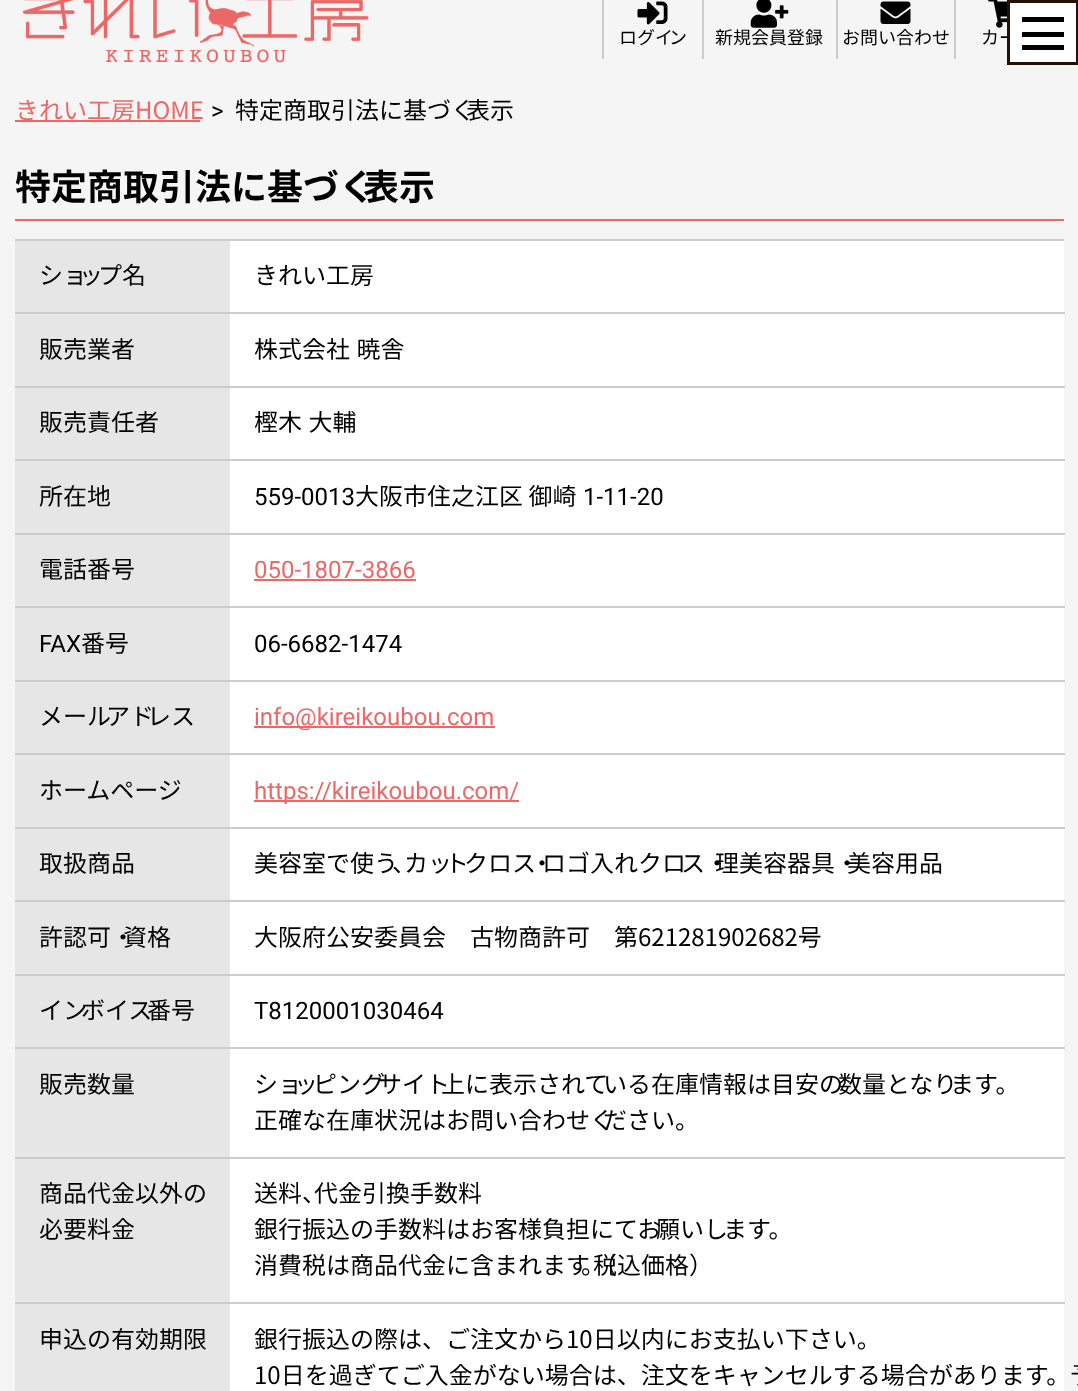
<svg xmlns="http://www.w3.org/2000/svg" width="1078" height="1391">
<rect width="100%" height="100%" fill="#f5f5f5"/>
<image x="22" y="0" width="347" height="63" href="media/1.png"/>
<rect x="702" width="2" height="59" fill="#ccc"/>
<rect x="602" width="2" height="59" fill="#ccc"/>
<image x="637" y="1" width="31" height="24" href="media/2.png"/>
<text x="619" y="44" style="font-family:Noto Sans JP;font-size:18px;fill:#000">ログイ</text>
<text x="669" y="44" style="font-family:Noto Sans JP;font-size:18px;fill:#000">ン</text>
<rect x="836" width="2" height="59" fill="#ccc"/>
<image x="750" y="0" width="39" height="28" href="media/3.png"/>
<text x="715" y="44" style="font-family:Noto Sans JP;font-size:18px;fill:#000">新規会員登録</text>
<rect x="954" width="2" height="59" fill="#ccc"/>
<image x="880" y="1" width="31" height="23" href="media/4.png"/>
<text x="842" y="44" style="font-family:Noto Sans JP;font-size:18px;fill:#000">お問い合わせ</text>
<image x="988" y="0" width="19" height="28" href="media/5.png"/>
<text x="981" y="44" style="font-family:Noto Sans JP;font-size:18px;fill:#000">カー</text>
<rect x="15" y="120" width="185" height="2" fill="#ec6867"/>
<text x="15" y="119" style="font-family:Noto Sans JP;font-size:24px;fill:#ec6867">きれい工房HOME</text>
<text x="211" y="119" style="font-family:Roboto;font-size:24px;fill:#000">&gt;</text>
<text x="235" y="119" style="font-family:Noto Sans JP;font-size:24px;fill:#000">特定商取引法に基づく</text>
<text x="466" y="119" style="font-family:Noto Sans JP;font-size:24px;fill:#000">表示</text>
<rect x="15" y="219" width="1049" height="2" fill="#ec6867"/>
<text x="15" y="200" style="font-family:Noto Sans JP;font-size:36px;font-weight:bold;fill:#000">特定商取引法に基づく</text>
<text x="363" y="200" style="font-family:Noto Sans JP;font-size:36px;font-weight:bold;fill:#000">表示</text>
<rect x="15" y="239" width="1049" height="2" fill="#ccc"/>
<rect x="15" y="241" width="215" height="71" fill="#e6e6e6"/>
<text x="39" y="284" style="font-family:Noto Sans JP;font-size:24px;fill:#000">ショ</text>
<text x="79" y="284" style="font-family:Noto Sans JP;font-size:24px;fill:#000">ッ</text>
<text x="98" y="284" style="font-family:Noto Sans JP;font-size:24px;fill:#000">プ名</text>
<rect x="230" y="241" width="834" height="71" fill="#fff"/>
<rect x="15" y="312" width="1050" height="2" fill="#ccc"/>
<text x="254" y="284" style="font-family:Noto Sans JP;font-size:24px;fill:#000">きれい工房</text>
<rect x="15" y="314" width="215" height="72" fill="#e6e6e6"/>
<text x="39" y="358" style="font-family:Noto Sans JP;font-size:24px;fill:#000">販売業者</text>
<rect x="230" y="314" width="834" height="72" fill="#fff"/>
<rect x="15" y="386" width="1050" height="2" fill="#ccc"/>
<text x="254" y="358" word-spacing="1" style="font-family:Noto Sans JP;font-size:24px;fill:#000">株式会社 暁舎</text>
<rect x="15" y="388" width="215" height="71" fill="#e6e6e6"/>
<text x="39" y="431" style="font-family:Noto Sans JP;font-size:24px;fill:#000">販売責任者</text>
<rect x="230" y="388" width="834" height="71" fill="#fff"/>
<rect x="15" y="459" width="1050" height="2" fill="#ccc"/>
<text x="254" y="431" word-spacing="1" style="font-family:Noto Sans JP;font-size:24px;fill:#000">樫木 大輔</text>
<rect x="15" y="461" width="215" height="72" fill="#e6e6e6"/>
<text x="39" y="505" style="font-family:Noto Sans JP;font-size:24px;fill:#000">所在地</text>
<rect x="230" y="461" width="834" height="72" fill="#fff"/>
<rect x="15" y="533" width="1050" height="2" fill="#ccc"/>
<text x="254" y="505" style="font-family:Roboto;font-size:24px;fill:#000">559-0013</text>
<text x="355" y="505" style="font-family:Noto Sans JP;font-size:24px;fill:#000">大阪市住之江区 御崎</text>
<text x="583" y="505" style="font-family:Roboto;font-size:24px;fill:#000">1-11-20</text>
<rect x="15" y="535" width="215" height="71" fill="#e6e6e6"/>
<text x="39" y="578" style="font-family:Noto Sans JP;font-size:24px;fill:#000">電話番号</text>
<rect x="230" y="535" width="834" height="71" fill="#fff"/>
<rect x="15" y="606" width="1050" height="2" fill="#ccc"/>
<text x="254" y="578" style="font-family:Roboto;font-size:24px;fill:#ec6867">050-1807-3866</text>
<rect x="254" y="579" width="162" height="2" fill="#ec6867"/>
<rect x="15" y="608" width="215" height="72" fill="#e6e6e6"/>
<text x="39" y="652" style="font-family:Roboto;font-size:24px;fill:#000">FAX</text>
<text x="81" y="652" style="font-family:Noto Sans JP;font-size:24px;fill:#000">番号</text>
<rect x="230" y="608" width="834" height="72" fill="#fff"/>
<rect x="15" y="680" width="1050" height="2" fill="#ccc"/>
<text x="254" y="652" style="font-family:Roboto;font-size:24px;fill:#000">06-6682-1474</text>
<rect x="15" y="682" width="215" height="71" fill="#e6e6e6"/>
<text x="39" y="725" style="font-family:Noto Sans JP;font-size:24px;fill:#000">メール</text>
<text x="106" y="725" style="font-family:Noto Sans JP;font-size:24px;fill:#000">アド</text>
<text x="147" y="725" style="font-family:Noto Sans JP;font-size:24px;fill:#000">レス</text>
<rect x="230" y="682" width="834" height="71" fill="#fff"/>
<rect x="15" y="753" width="1050" height="2" fill="#ccc"/>
<rect x="254" y="726" width="241" height="2" fill="#ec6867"/>
<text x="254" y="725" style="font-family:Roboto;font-size:24px;fill:#ec6867">info@kireikoubou.com</text>
<rect x="15" y="755" width="215" height="72" fill="#e6e6e6"/>
<text x="39" y="799" style="font-family:Noto Sans JP;font-size:24px;fill:#000">ホームページ</text>
<rect x="230" y="755" width="834" height="72" fill="#fff"/>
<rect x="15" y="827" width="1050" height="2" fill="#ccc"/>
<rect x="254" y="800" width="265" height="2" fill="#ec6867"/>
<text x="254" y="799" style="font-family:Roboto;font-size:24px;fill:#ec6867">https://kireikoubou.com/</text>
<rect x="15" y="829" width="215" height="71" fill="#e6e6e6"/>
<text x="39" y="872" style="font-family:Noto Sans JP;font-size:24px;fill:#000">取扱商品</text>
<rect x="230" y="829" width="834" height="71" fill="#fff"/>
<rect x="15" y="900" width="1050" height="2" fill="#ccc"/>
<text x="254" y="872" style="font-family:Noto Sans JP;font-size:24px;fill:#000">美容室で使う</text>
<text x="392" y="872" style="font-family:Noto Sans JP;font-size:24px;fill:#000">、</text>
<text x="404" y="872" style="font-family:Noto Sans JP;font-size:24px;fill:#000">カッ</text>
<text x="445" y="872" style="font-family:Noto Sans JP;font-size:24px;fill:#000">ト</text>
<text x="464" y="872" style="font-family:Noto Sans JP;font-size:24px;fill:#000">クロス</text>
<text x="530" y="872" style="font-family:Noto Sans JP;font-size:24px;fill:#000">・</text>
<text x="542" y="872" style="font-family:Noto Sans JP;font-size:24px;fill:#000">ロゴ入れクロ</text>
<text x="681" y="872" style="font-family:Noto Sans JP;font-size:24px;fill:#000">ス・</text>
<text x="715" y="872" style="font-family:Noto Sans JP;font-size:24px;fill:#000">理美容器具・</text>
<text x="847" y="872" style="font-family:Noto Sans JP;font-size:24px;fill:#000">美容用品</text>
<rect x="15" y="902" width="215" height="72" fill="#e6e6e6"/>
<text x="39" y="946" style="font-family:Noto Sans JP;font-size:24px;fill:#000">許認可・</text>
<text x="123" y="946" style="font-family:Noto Sans JP;font-size:24px;fill:#000">資格</text>
<rect x="230" y="902" width="834" height="72" fill="#fff"/>
<rect x="15" y="974" width="1050" height="2" fill="#ccc"/>
<text x="254" y="946" style="font-family:Noto Sans JP;font-size:24px;fill:#000">大阪府公安委員会　古物商許可　第621281902682号</text>
<rect x="15" y="976" width="215" height="71" fill="#e6e6e6"/>
<text x="39" y="1019" style="font-family:Noto Sans JP;font-size:24px;fill:#000">イン</text>
<text x="81" y="1019" style="font-family:Noto Sans JP;font-size:24px;fill:#000">ボイス</text>
<text x="147" y="1019" style="font-family:Noto Sans JP;font-size:24px;fill:#000">番号</text>
<rect x="230" y="976" width="834" height="71" fill="#fff"/>
<rect x="15" y="1047" width="1050" height="2" fill="#ccc"/>
<text x="254" y="1019" style="font-family:Roboto;font-size:24px;fill:#000">T8120001030464</text>
<rect x="15" y="1049" width="215" height="108" fill="#e6e6e6"/>
<text x="39" y="1093" style="font-family:Noto Sans JP;font-size:24px;fill:#000">販売数量</text>
<rect x="230" y="1049" width="834" height="108" fill="#fff"/>
<rect x="15" y="1157" width="1050" height="2" fill="#ccc"/>
<text x="254" y="1093" style="font-family:Noto Sans JP;font-size:24px;fill:#000">ショ</text>
<text x="294" y="1093" style="font-family:Noto Sans JP;font-size:24px;fill:#000">ッ</text>
<text x="313" y="1093" style="font-family:Noto Sans JP;font-size:24px;fill:#000">ピング</text>
<text x="378" y="1093" style="font-family:Noto Sans JP;font-size:24px;fill:#000">サイト</text>
<text x="441" y="1093" style="font-family:Noto Sans JP;font-size:24px;fill:#000">上に表示されて</text>
<text x="603" y="1093" style="font-family:Noto Sans JP;font-size:24px;fill:#000">いる在庫情報は目安の</text>
<text x="838" y="1093" style="font-family:Noto Sans JP;font-size:24px;fill:#000">数量となり</text>
<text x="950" y="1093" style="font-family:Noto Sans JP;font-size:24px;fill:#000">ます。</text>
<text x="254" y="1129" style="font-family:Noto Sans JP;font-size:24px;fill:#000">正確な在庫状況はお問い合わせく</text>
<text x="603" y="1129" style="font-family:Noto Sans JP;font-size:24px;fill:#000">ださい。</text>
<rect x="15" y="1159" width="215" height="143" fill="#e6e6e6"/>
<text x="39" y="1202" style="font-family:Noto Sans JP;font-size:24px;fill:#000">商品代金以外の</text>
<text x="39" y="1238" style="font-family:Noto Sans JP;font-size:24px;fill:#000">必要料金</text>
<rect x="230" y="1159" width="834" height="143" fill="#fff"/>
<rect x="15" y="1302" width="1050" height="2" fill="#ccc"/>
<text x="254" y="1202" style="font-family:Noto Sans JP;font-size:24px;fill:#000">送料、</text>
<text x="314" y="1202" style="font-family:Noto Sans JP;font-size:24px;fill:#000">代金引換手数料</text>
<text x="254" y="1238" style="font-family:Noto Sans JP;font-size:24px;fill:#000">銀行振込の手数料はお客様負担にてお</text>
<text x="656" y="1238" style="font-family:Noto Sans JP;font-size:24px;fill:#000">願いし</text>
<text x="723" y="1238" style="font-family:Noto Sans JP;font-size:24px;fill:#000">ます。</text>
<text x="254" y="1274" style="font-family:Noto Sans JP;font-size:24px;fill:#000">消費税は商品代金に含まれます</text>
<text x="581" y="1274" style="font-family:Noto Sans JP;font-size:24px;fill:#000">。</text>
<text x="593" y="1274" style="font-family:Noto Sans JP;font-size:24px;fill:#000">（</text>
<text x="593" y="1274" style="font-family:Noto Sans JP;font-size:24px;fill:#000">税込価格）</text>
<rect x="15" y="1304" width="215" height="87" fill="#e6e6e6"/>
<text x="39" y="1348" style="font-family:Noto Sans JP;font-size:24px;fill:#000">申込の有効期限</text>
<rect x="230" y="1304" width="834" height="87" fill="#fff"/>
<text x="254" y="1348" style="font-family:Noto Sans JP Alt;font-size:24px;fill:#000">銀行振込の際は、ご注文から10日以内にお支払い下さい。</text>
<text x="254" y="1384" style="font-family:Noto Sans JP Alt;font-size:24px;fill:#000">10日を過ぎてご入金がない場合は、注文をキャンセルする場合があります。予</text>
<rect x="1008.5" y="1.5" width="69" height="62" fill="#fff" stroke="#231006" stroke-width="3"/>
<rect x="1022" y="32" width="42" height="5" fill="#000"/>
<rect x="1022" y="17" width="42" height="5" fill="#000"/>
<rect x="1022" y="45" width="42" height="5" fill="#000"/>
</svg>
